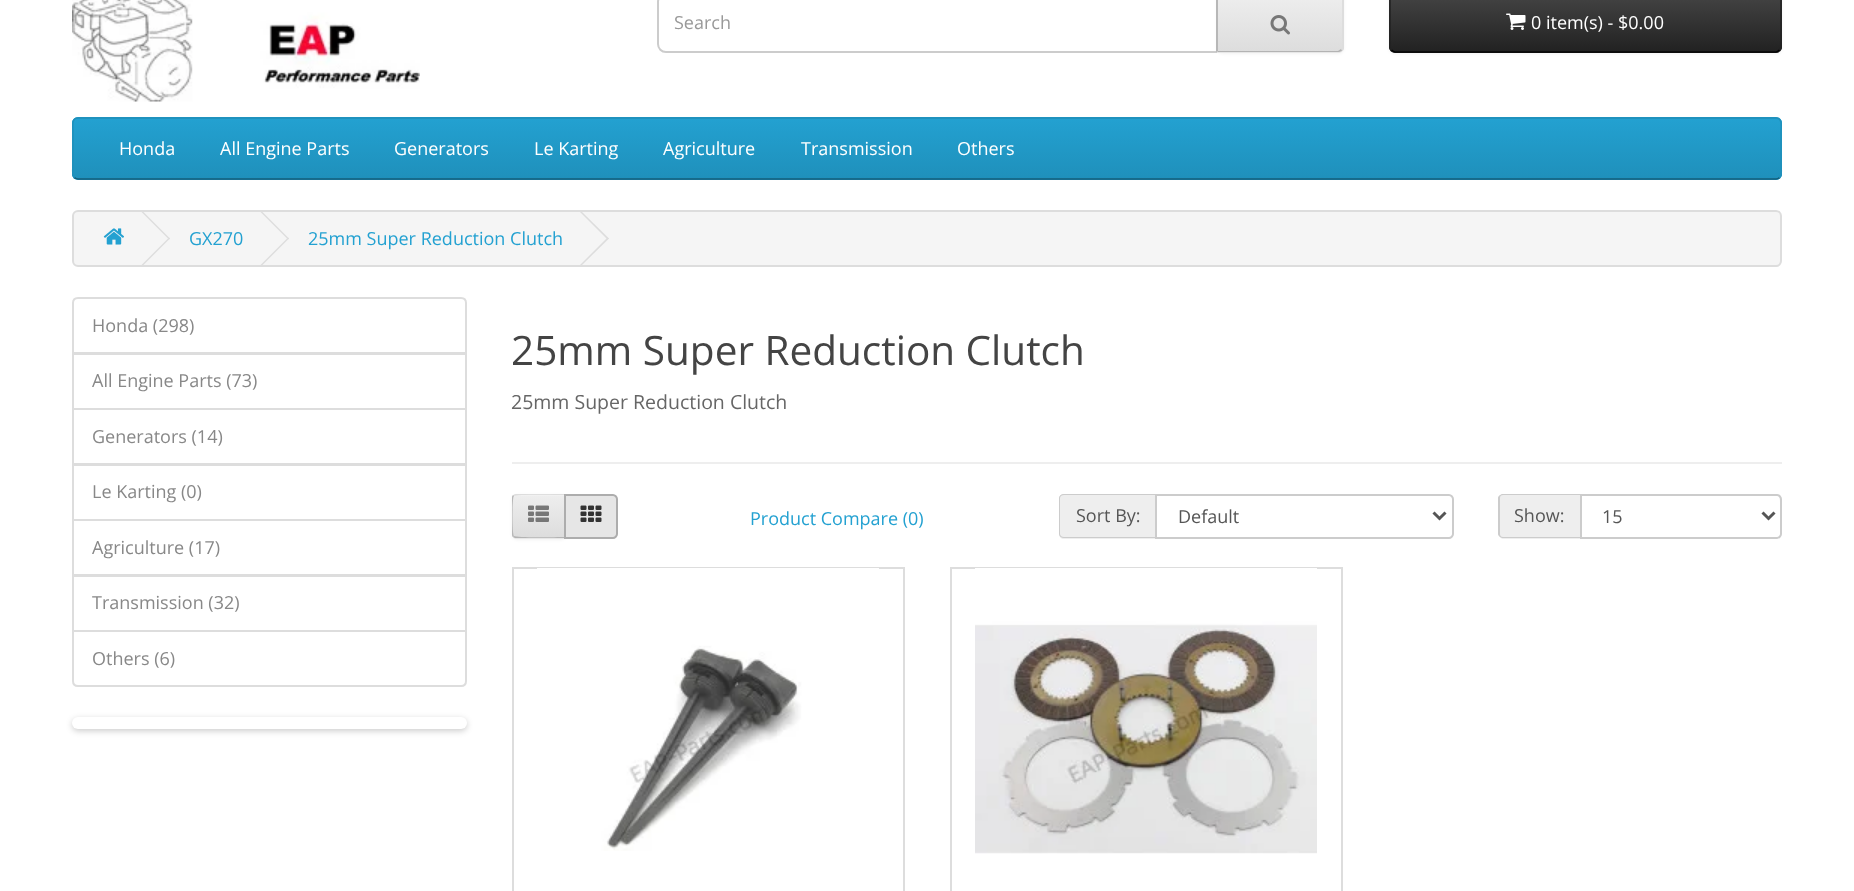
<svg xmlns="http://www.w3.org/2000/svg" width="1854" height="891">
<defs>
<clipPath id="clip1"><path d="M1217-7h121c3.5 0 6 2.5 6 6v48c0 3.5-2.5 6-6 6h-121z"/></clipPath>
<linearGradient id="g1" gradientUnits="userSpaceOnUse" x1="1280" y1="-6" x2="1280" y2="51"><stop offset="0" stop-color="#eee"/><stop offset="1" stop-color="#ddd"/></linearGradient>
<clipPath id="clip2"><rect x="1389" y="-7" width="393" height="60" rx="6"/></clipPath>
<linearGradient id="g2" gradientUnits="userSpaceOnUse" x1="1586" y1="-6" x2="1586" y2="51"><stop offset="0" stop-color="#444"/><stop offset="1" stop-color="#222"/></linearGradient>
<clipPath id="clip3"><rect x="72" y="117" width="1710" height="63" rx="6"/></clipPath>
<linearGradient id="g3" gradientUnits="userSpaceOnUse" x1="927" y1="118" x2="927" y2="179"><stop offset="0" stop-color="#23a1d1"/><stop offset="1" stop-color="#1f90bb"/></linearGradient>
<clipPath id="clip4"><path d="M517 494h49v45h-49c-3 0-5-2-5-5v-35c0-3 2-5 5-5z"/></clipPath>
<linearGradient id="g4" gradientUnits="userSpaceOnUse" x1="539" y1="495" x2="539" y2="537"><stop offset="0" stop-color="#eee"/><stop offset="1" stop-color="#ddd"/></linearGradient>
</defs>
<rect width="100%" height="100%" fill="#fff"/>
<image x="72" y="0" width="348" height="102" href="media/1.png"/>
<path d="M666-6h551v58h-551c-4.5 0-8-3.5-8-8v-42c0-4.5 3.5-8 8-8z" fill="none" stroke="#ccc" stroke-width="2"/>
<text x="674" y="29" style="font-family:Open Sans;font-size:18px;fill:#999">Search</text>
<rect x="1217" y="-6" width="127" height="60" rx="6" fill="#0000000d" filter="blur(1.5px)"/>
<path d="M1217-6h121c3.5 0 6 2.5 6 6v47c0 3.5-2.5 6-6 6h-121z" fill="#e7e7e7"/>
<g clip-path="url(#clip1)">
<rect x="1218" width="126" height="51" fill="url(#g1)"/>
</g>
<path d="M1344 46v-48c0-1-1-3-2-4l-1 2l1 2v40c0 2 1 9-1 11l1 2c1-1 2-3 2-5z" fill="#ddd"/>
<path d="M1342 51l-3 1h-122l1-1h120l3-2z" fill="#b3b3b3"/>
<path d="M1218-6v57l-2 1v-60z" fill="#b7b7b7"/>
<image x="1270" y="15" width="20" height="20" href="media/2.png"/>
<rect x="1389" y="-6" width="393" height="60" rx="6" fill="#0000000d" filter="blur(1.5px)"/>
<rect x="1389" y="-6" width="393" height="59" rx="6" fill="#363636"/>
<g clip-path="url(#clip2)">
<rect x="1389" width="393" height="51" fill="url(#g2)"/>
</g>
<path d="M1779.5 50c-1 1-2 2-3.5 2h-381c-1.5 0-2.5-1-3.5-2" fill="none" stroke="#000" stroke-width="1.5"/>
<path d="M1391.5 50c-1-1-1.5-2-1.5-3.5v-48c0-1.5 .5-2.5 1.5-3.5c1-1 2-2 3.5-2h381c1.5 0 2.5 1 3.5 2c1 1 1.5 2 1.5 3.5v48c0 1.5-.5 2.5-1.5 3.5" fill="none" stroke="#222" stroke-width="1.5"/>
<image x="1506" y="13" width="20" height="17" href="media/3.png"/>
<text x="1531" y="29" style="font-family:Open Sans;font-size:18px;fill:#fff">0 item(s) - $0.00</text>
<rect x="72" y="117" width="1710" height="63" rx="6" fill="#229ac8"/>
<g clip-path="url(#clip3)">
<rect x="72" y="119" width="1710" height="60" fill="url(#g3)"/>
</g>
<path d="M1779.5 177.5c-1 1-2 1.5-3.5 1.5h-1698c-1.5 0-2.5-.5-3.5-1.5" fill="none" stroke="#145e7a" stroke-width="1.5"/>
<path d="M74.5 177.5c-3-2.5-1.5-9.5-1.5-12v-34c0-4-2-13.5 5-13.5h1698c7 0 5 9.5 5 13.5v34c0 2.5 1.5 9.5-1.5 12" fill="none" stroke="#1f90bb" stroke-width="1.5"/>
<text x="119" y="155" style="font-family:Open Sans;font-size:18px;fill:#fff">Honda</text>
<text x="220" y="155" style="font-family:Open Sans;font-size:18px;fill:#fff">All Engine Parts</text>
<text x="394" y="155" style="font-family:Open Sans;font-size:18px;fill:#fff">Generators</text>
<text x="534" y="155" style="font-family:Open Sans;font-size:18px;fill:#fff">Le Karting</text>
<text x="663" y="155" style="font-family:Open Sans;font-size:18px;fill:#fff">Agriculture</text>
<text x="801" y="155" style="font-family:Open Sans;font-size:18px;fill:#fff">Transmission</text>
<text x="957" y="155" style="font-family:Open Sans;font-size:18px;fill:#fff">Others</text>
<rect x="73" y="211" width="1708" height="55" rx="5" fill="#f5f5f5" stroke="#ddd" stroke-width="2"/>
<image x="103" y="228" width="21" height="17" href="media/4.png"/>
<path d="M141.5 212l1-1l27.5 27.5l-1 1z" fill="#ddd"/>
<path d="M141.5 265l27.5-27.5l1 1l-27.5 27.5z" fill="#ddd"/>
<text x="189" y="245" style="font-family:Open Sans;font-size:18px;fill:#23a1d1">GX270</text>
<path d="M260.5 212l1-1l27.5 27.5l-1 1z" fill="#ddd"/>
<path d="M260.5 265l27.5-27.5l1 1l-27.5 27.5z" fill="#ddd"/>
<text x="308" y="245" style="font-family:Open Sans;font-size:18px;fill:#23a1d1">25mm Super Reduction Clutch</text>
<path d="M580 212l1-1l28 27.5l-1.5 1z" fill="#ddd"/>
<path d="M580 265l27.5-27.5l1.5 1l-28 27.5z" fill="#ddd"/>
<path d="M78 298h383c3 0 5 2 5 5v50h-393v-50c0-3 2-5 5-5z" fill="none" stroke="#ddd" stroke-width="2"/>
<text x="92" y="332" style="font-family:Open Sans;font-size:18px;fill:#888">Honda (298)</text>
<rect x="73" y="354" width="393" height="55" fill="none" stroke="#ddd" stroke-width="2"/>
<text x="92" y="387" style="font-family:Open Sans;font-size:18px;fill:#888">All Engine Parts (73)</text>
<rect x="73" y="409" width="393" height="55" fill="none" stroke="#ddd" stroke-width="2"/>
<text x="92" y="443" style="font-family:Open Sans;font-size:18px;fill:#888">Generators (14)</text>
<rect x="73" y="465" width="393" height="55" fill="none" stroke="#ddd" stroke-width="2"/>
<text x="92" y="498" style="font-family:Open Sans;font-size:18px;fill:#888">Le Karting (0)</text>
<rect x="73" y="520" width="393" height="55" fill="none" stroke="#ddd" stroke-width="2"/>
<text x="92" y="554" style="font-family:Open Sans;font-size:18px;fill:#888">Agriculture (17)</text>
<rect x="73" y="576" width="393" height="55" fill="none" stroke="#ddd" stroke-width="2"/>
<text x="92" y="609" style="font-family:Open Sans;font-size:18px;fill:#888">Transmission (32)</text>
<path d="M73 631h393v50c0 3-2 5-5 5h-383c-3 0-5-2-5-5z" fill="#fff" stroke="#ddd" stroke-width="2"/>
<text x="92" y="665" style="font-family:Open Sans;font-size:18px;fill:#888">Others (6)</text>
<rect x="72" y="719" width="395" height="12" rx="6" fill="#00000033" filter="blur(3px)"/>
<rect x="72" y="717" width="395" height="12" rx="6" fill="#fff"/>
<text x="511" y="365" style="font-family:Open Sans;font-size:40.5px;fill:#444">25mm Super Reduction Clutch</text>
<text x="511" y="409" style="font-family:Open Sans;font-size:19.5px;fill:#666">25mm Super Reduction Clutch</text>
<rect x="512" y="462" width="1270" height="2" fill="#eee"/>
<rect x="512" y="495" width="54" height="45" rx="5" fill="#0000000d" filter="blur(1.5px)"/>
<path d="M517 494h49v45h-49c-3 0-5-2-5-5v-35c0-3 2-5 5-5z" fill="#e7e7e7"/>
<g clip-path="url(#clip4)">
<rect x="512" y="495" width="52" height="42" fill="url(#g4)"/>
</g>
<path d="M516 496h48v-1h-48c-2 0-3 1-3 3v2c0-2 1-4 3-4z" fill="#f1f1f1"/>
<path d="M516 494l-3 1l1 1c2-2 44-1 50-1l1-1z" fill="#ddd"/>
<path d="M565 538h-50l-2-1l1-1c2 2 44 1 50 1z" fill="#b3b3b3"/>
<path d="M513 495c-1 1-1 2-1 3v36c0 1 0 2 1 3l1-1c-2-1-2-39 0-40z" fill="#b7b7b7"/>
<image x="528" y="505" width="21" height="17" href="media/5.png"/>
<path d="M565 495h48c2 0 4 2 4 4v35c0 2-2 4-4 4h-48z" fill="#e6e6e6" stroke="#adadad" stroke-width="2"/>
<image x="580" y="505" width="22" height="17" href="media/6.png"/>
<text x="750" y="525" style="font-family:Open Sans;font-size:18px;fill:#23a1d1">Product Compare (0)</text>
<path d="M1064 494h91v45h-91c-3 0-5-2-5-5v-35c0-3 2-5 5-5z" fill="#eee"/>
<path d="M1064 494h91v44h-91c-3 0-5-2-5-4v-36c0-2 2-4 5-4zm0 1h91v42h-91c-2 0-4-1-4-3v-36c0-2 2-3 4-3z" fill="#ccc" fill-rule="evenodd"/>
<text x="1076" y="522" style="font-family:Open Sans;font-size:18px;fill:#555">Sort By:</text>
<path d="M1156 495h293c2 0 4 2 4 4v35c0 2-2 4-4 4h-293z" fill="none" stroke="#ccc" stroke-width="2"/>
<path d="M1433.5 512.5l6 6l6-6" fill="none" stroke="#555" stroke-width="3"/>
<text x="1178" y="523" style="font-family:Open Sans;font-size:18px;fill:#555">Default</text>
<path d="M1504 494h76v45h-76c-3 0-5-2-5-5v-35c0-3 2-5 5-5z" fill="#eee"/>
<path d="M1503 494h77v44h-77c-2 0-5-2-5-4v-36c0-2 3-4 5-4zm0 1h77v42h-77c-2 0-3-1-3-3v-36c0-2 1-3 3-3z" fill="#ccc" fill-rule="evenodd"/>
<text x="1514" y="522" style="font-family:Open Sans;font-size:18px;fill:#555">Show:</text>
<path d="M1581 496h197c3 0 2 15 2 16v24c1 0 1-1 1-2v-36c0-2-1-3-3-3h-197z" fill="#ececec"/>
<path d="M1581 495h196c2 0 4 2 4 4v35c0 2-2 4-4 4h-196z" fill="none" stroke="#ccc" stroke-width="2"/>
<path d="M1762.5 512.5l6 6l6-6" fill="none" stroke="#555" stroke-width="3"/>
<text x="1602" y="523" style="font-family:Open Sans;font-size:18px;fill:#555">15</text>
<rect x="513" y="568" width="391" height="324" fill="none" stroke="#ddd" stroke-width="2"/>
<image x="537" y="568" width="342" height="283" href="media/7.png"/>
<rect x="951" y="568" width="391" height="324" fill="none" stroke="#ddd" stroke-width="2"/>
<image x="975" y="568" width="342" height="286" href="media/8.png"/>
</svg>
